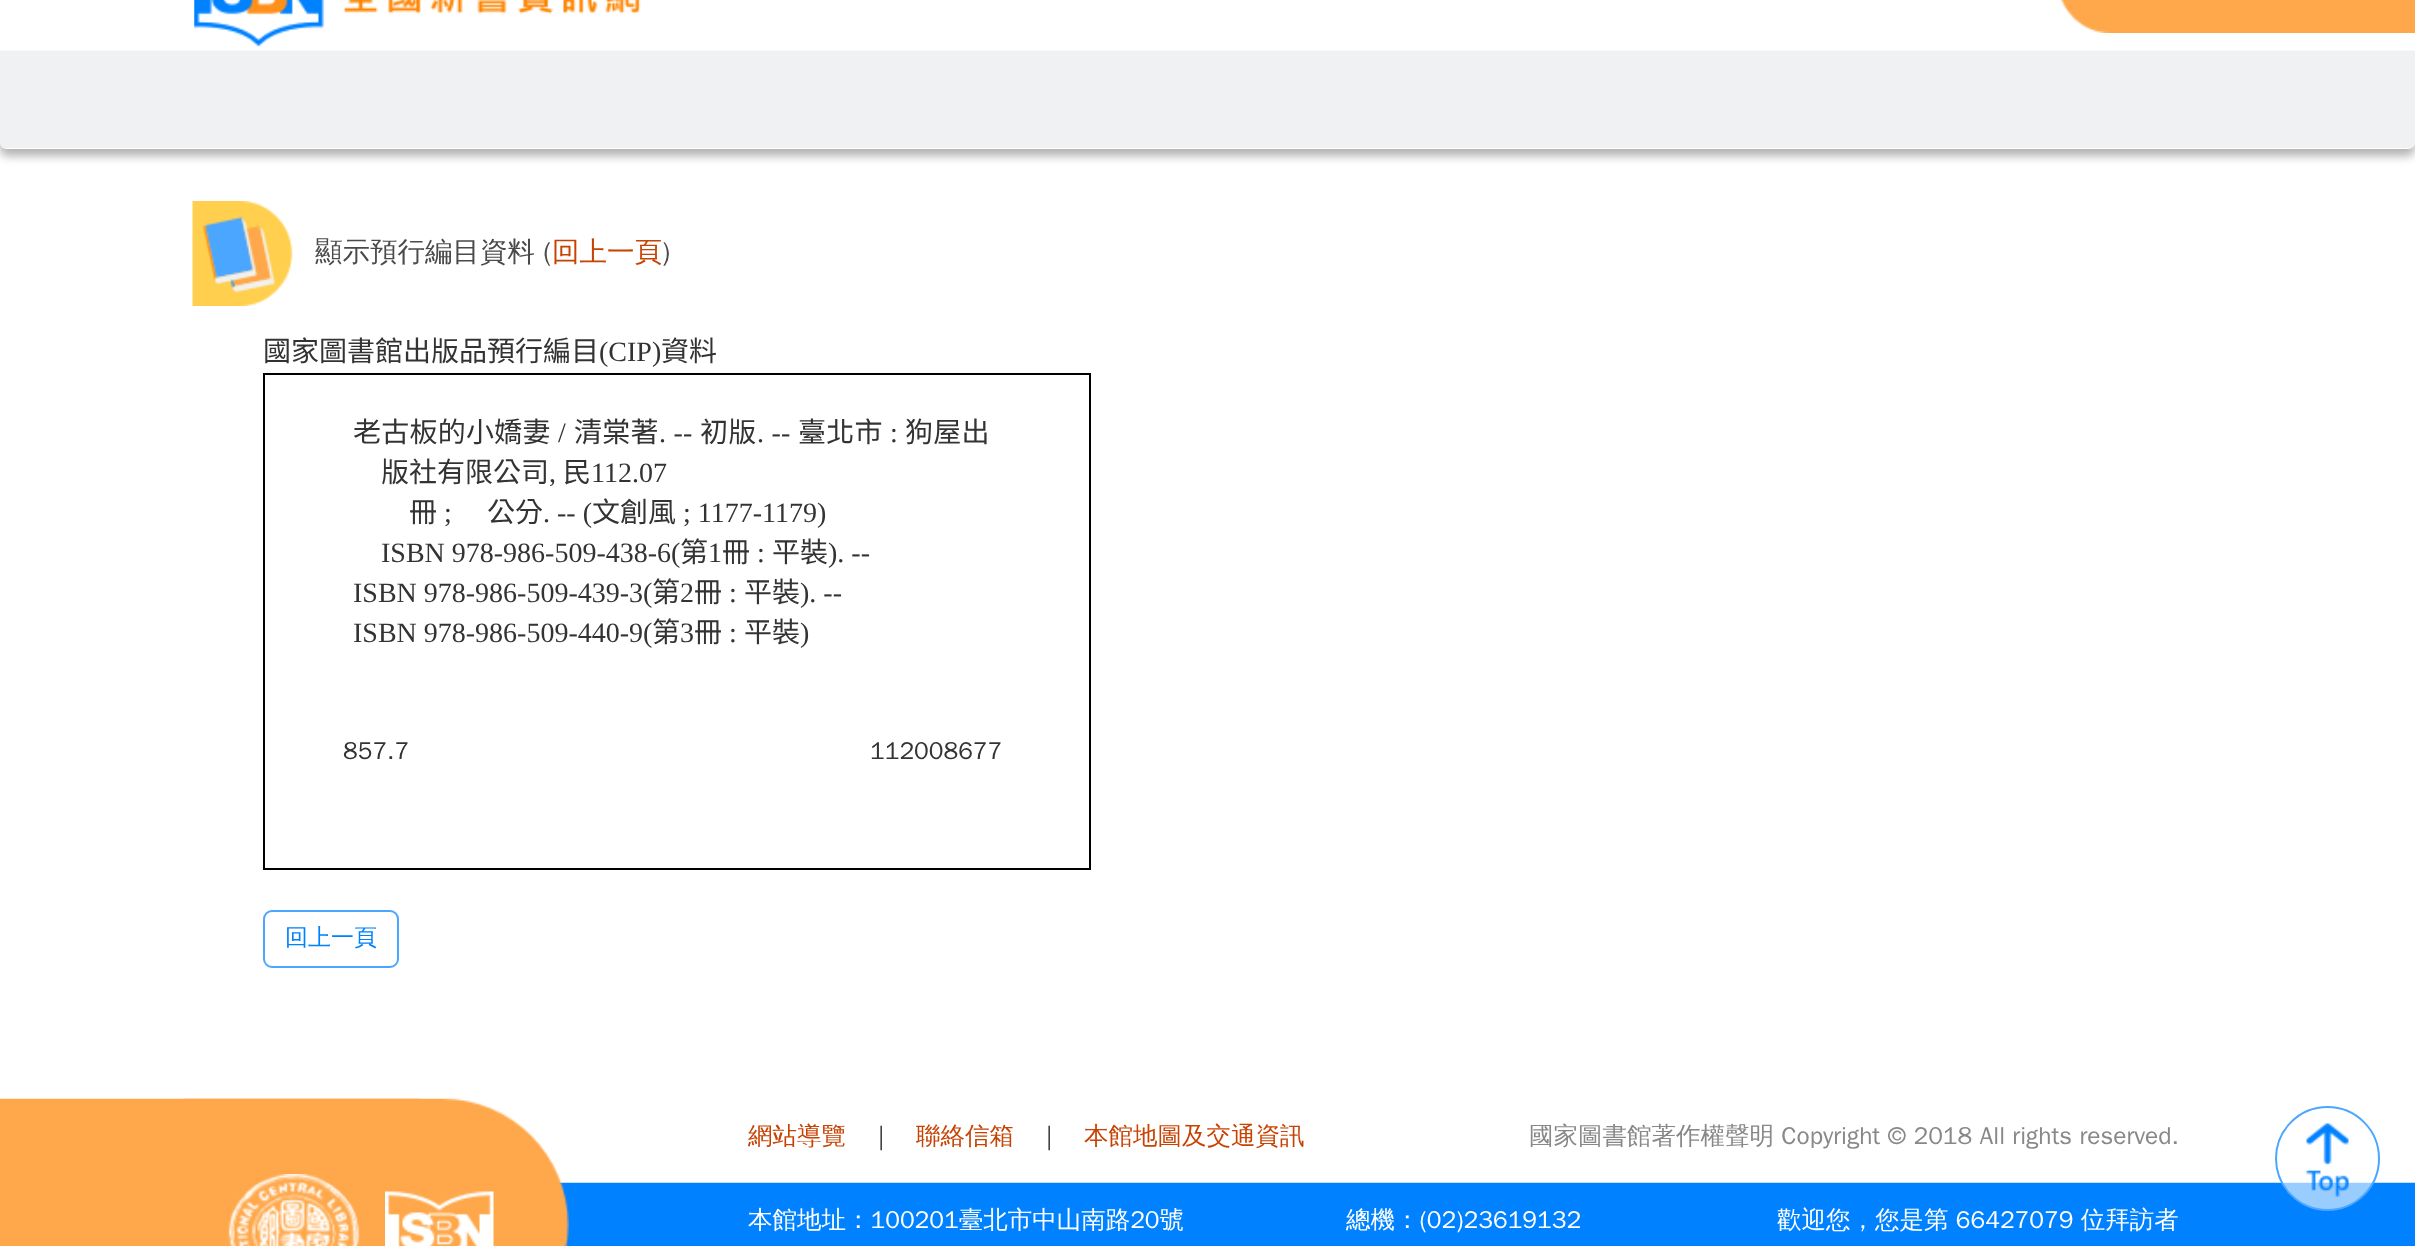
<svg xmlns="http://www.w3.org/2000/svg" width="2415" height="1246">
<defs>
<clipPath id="clip1"><path d="M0 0h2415v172h-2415zm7-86h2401c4 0 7 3 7 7v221c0 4-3 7-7 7h-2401c-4 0-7-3-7-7v-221c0-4 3-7 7-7z" clip-rule="evenodd"/></clipPath>
</defs>
<rect width="100%" height="100%" fill="#fff"/>
<g clip-path="url(#clip1)">
<rect y="-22" width="2415" height="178" rx="7" fill="#0000004d" filter="blur(5px)"/>
</g>
<image x="0" y="0" width="2415" height="148" href="media/1.png"/>
<image x="194" y="0" width="447" height="47" href="media/2.png"/>
<image x="2061" y="0" width="59" height="33" href="media/3.png"/>
<image x="192" y="201" width="101" height="105" href="media/4.png"/>
<text x="315" y="261" style="font-family:WenQuanYi Zen Hei;font-size:27.5px;font-weight:500;fill:#4a4a4a">顯示預行編目資料 (</text>
<text x="552" y="261" style="font-family:WenQuanYi Zen Hei;font-size:27.5px;font-weight:500;fill:#c74304">回上一頁</text>
<text x="662" y="261" style="font-family:WenQuanYi Zen Hei;font-size:27.5px;font-weight:500;fill:#4a4a4a">)</text>
<text x="263" y="361" style="font-family:Noto Sans CJK TC;font-size:28px;fill:#333">國家圖書館出版品預行編目</text>
<text x="599" y="361" style="font-family:Liberation Serif;font-size:28px;fill:#333">(CIP)</text>
<text x="661" y="361" style="font-family:Noto Sans CJK TC;font-size:28px;fill:#333">資料</text>
<rect x="263" y="373" width="827" height="2" fill="#000"/>
<rect x="1089" y="373" width="2" height="497" fill="#000"/>
<rect x="263" y="868" width="827" height="2" fill="#000"/>
<rect x="263" y="373" width="2" height="497" fill="#000"/>
<text x="353" y="442" style="font-family:Noto Sans CJK TC;font-size:28px;letter-spacing:0.25px;fill:#333">老古板的小嬌妻</text>
<text x="558" y="442" style="font-family:Liberation Serif;font-size:28px;letter-spacing:0.25px;fill:#333">/</text>
<text x="574" y="442" style="font-family:Noto Sans CJK TC;font-size:28px;letter-spacing:0.25px;fill:#333">清棠著</text>
<text x="659" y="442" style="font-family:Liberation Serif;font-size:28px;letter-spacing:0.25px;fill:#333">. --</text>
<text x="700" y="442" style="font-family:Noto Sans CJK TC;font-size:28px;letter-spacing:0.25px;fill:#333">初版</text>
<text x="757" y="442" style="font-family:Liberation Serif;font-size:28px;letter-spacing:0.25px;fill:#333">. --</text>
<text x="798" y="442" style="font-family:Noto Sans CJK TC;font-size:28px;letter-spacing:0.25px;fill:#333">臺北市</text>
<text x="890" y="442" style="font-family:Liberation Serif;font-size:28px;letter-spacing:0.25px;fill:#333">:</text>
<text x="905" y="442" style="font-family:Noto Sans CJK TC;font-size:28px;letter-spacing:0.25px;fill:#333">狗屋出</text>
<text x="381" y="482" style="font-family:Noto Sans CJK TC;font-size:28px;fill:#333">版社有限公司</text>
<text x="549" y="482" style="font-family:Liberation Serif;font-size:28px;fill:#333">,</text>
<text x="563" y="482" style="font-family:Noto Sans CJK TC;font-size:28px;fill:#333">民</text>
<text x="591" y="482" style="font-family:Liberation Serif;font-size:28px;fill:#333">112.07</text>
<text x="409" y="522" style="font-family:Noto Sans CJK TC;font-size:28px;fill:#333">冊</text>
<text x="444" y="522" style="font-family:Liberation Serif;font-size:28px;fill:#333">;</text>
<text x="487" y="522" style="font-family:Noto Sans CJK TC;font-size:28px;fill:#333">公分</text>
<text x="543" y="522" style="font-family:Liberation Serif;font-size:28px;fill:#333">. -- (</text>
<text x="592" y="522" style="font-family:Noto Sans CJK TC;font-size:28px;fill:#333">文創風</text>
<text x="683" y="522" style="font-family:Liberation Serif;font-size:28px;fill:#333">; 1177-1179)</text>
<text x="381" y="562" style="font-family:Liberation Serif;font-size:28px;fill:#333">ISBN 978-986-509-438-6(</text>
<text x="680" y="562" style="font-family:Noto Sans CJK TC;font-size:28px;fill:#333">第</text>
<text x="708" y="562" style="font-family:Liberation Serif;font-size:28px;fill:#333">1</text>
<text x="722" y="562" style="font-family:Noto Sans CJK TC;font-size:28px;fill:#333">冊</text>
<text x="757" y="562" style="font-family:Liberation Serif;font-size:28px;fill:#333">:</text>
<text x="772" y="562" style="font-family:Noto Sans CJK TC;font-size:28px;fill:#333">平裝</text>
<text x="828" y="562" style="font-family:Liberation Serif;font-size:28px;fill:#333">). --</text>
<text x="353" y="602" style="font-family:Liberation Serif;font-size:28px;fill:#333">ISBN 978-986-509-439-3(</text>
<text x="652" y="602" style="font-family:Noto Sans CJK TC;font-size:28px;fill:#333">第</text>
<text x="680" y="602" style="font-family:Liberation Serif;font-size:28px;fill:#333">2</text>
<text x="694" y="602" style="font-family:Noto Sans CJK TC;font-size:28px;fill:#333">冊</text>
<text x="729" y="602" style="font-family:Liberation Serif;font-size:28px;fill:#333">:</text>
<text x="744" y="602" style="font-family:Noto Sans CJK TC;font-size:28px;fill:#333">平裝</text>
<text x="800" y="602" style="font-family:Liberation Serif;font-size:28px;fill:#333">). --</text>
<text x="353" y="642" style="font-family:Liberation Serif;font-size:28px;fill:#333">ISBN 978-986-509-440-9(</text>
<text x="652" y="642" style="font-family:Noto Sans CJK TC;font-size:28px;fill:#333">第</text>
<text x="680" y="642" style="font-family:Liberation Serif;font-size:28px;fill:#333">3</text>
<text x="694" y="642" style="font-family:Noto Sans CJK TC;font-size:28px;fill:#333">冊</text>
<text x="729" y="642" style="font-family:Liberation Serif;font-size:28px;fill:#333">:</text>
<text x="744" y="642" style="font-family:Noto Sans CJK TC;font-size:28px;fill:#333">平裝</text>
<text x="800" y="642" style="font-family:Liberation Serif;font-size:28px;fill:#333">)</text>
<text x="343" y="759" style="font-family:WenQuanYi Zen Hei;font-size:24.5px;font-weight:500;fill:#333">857.7</text>
<text x="870" y="759" style="font-family:WenQuanYi Zen Hei;font-size:24.5px;font-weight:500;fill:#333">112008677</text>
<rect x="264" y="911" width="134" height="56" rx="8" fill="none" stroke="#4ba6ff" stroke-width="2"/>
<text x="285" y="945" style="font-family:WenQuanYi Zen Hei;font-size:23px;font-weight:500;fill:#0081ff">回上一頁</text>
<image x="0" y="1098" width="2415" height="148" href="media/5.png"/>
<image x="183" y="1098" width="386" height="148" href="media/6.png"/>
<image x="227" y="1174" width="133" height="72" href="media/7.png"/>
<image x="385" y="1191" width="109" height="55" href="media/8.png"/>
<text x="748" y="1144" style="font-family:WenQuanYi Zen Hei;font-size:24.5px;font-weight:500;fill:#c74304">網站導覽</text>
<text x="878" y="1144" style="font-family:WenQuanYi Zen Hei;font-size:24.5px;font-weight:500;fill:#333">|</text>
<text x="916" y="1144" style="font-family:WenQuanYi Zen Hei;font-size:24.5px;font-weight:500;fill:#c74304">聯絡信箱</text>
<text x="1046" y="1144" style="font-family:WenQuanYi Zen Hei;font-size:24.5px;font-weight:500;fill:#333">|</text>
<text x="1084" y="1144" style="font-family:WenQuanYi Zen Hei;font-size:24.5px;font-weight:500;fill:#c74304">本館地圖及交通資訊</text>
<text x="1529" y="1144" style="font-family:WenQuanYi Zen Hei;font-size:24.5px;font-weight:500;fill:#888">國家圖書館著作權聲明 Copyright © 2018 All rights reserved.</text>
<circle cx="2327.5" cy="1158.5" r="51.5" fill="#ffffff99" stroke="#4ba6ff" stroke-width="2"/>
<image x="2306" y="1123" width="44" height="74" href="media/9.png"/>
<text x="748" y="1228" style="font-family:WenQuanYi Zen Hei;font-size:24.5px;font-weight:500;fill:#fff">本館地址：100201臺北市中山南路20號</text>
<text x="1346" y="1228" style="font-family:WenQuanYi Zen Hei;font-size:24.5px;font-weight:500;fill:#fff">總機：(02)23619132</text>
<text x="1777" y="1228" style="font-family:WenQuanYi Zen Hei;font-size:24.5px;font-weight:500;fill:#fff">歡迎您，您是第 66427079 位拜訪者</text>
</svg>
